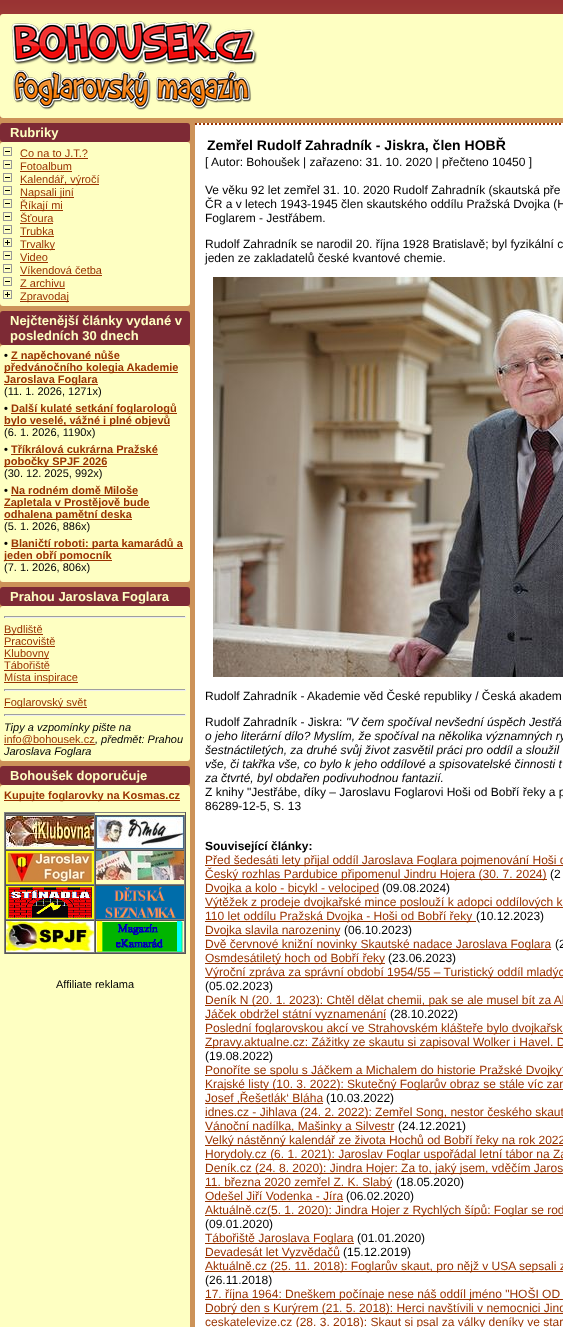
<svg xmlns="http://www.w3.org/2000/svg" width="563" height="1327">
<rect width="100%" height="100%" fill="#fff"/>
<image x="0" y="0" width="563" height="118" href="media/1.png"/>
<rect y="14" width="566" height="104" rx="3" fill="#feffc2"/>
<image x="11" y="21" width="247" height="89" href="media/2.png"/>
<rect y="118" width="563" height="1209" fill="#cc9258"/>
<rect y="123" width="190" height="19" rx="3" fill="#7d2a35"/>
<text x="10" y="137" style="font-family:Liberation Sans;font-size:13px;font-weight:bold;fill:#feffc2">Rubriky</text>
<rect y="142" width="190" height="164" rx="3" fill="#feffc2"/>
<image x="3" y="147" width="9" height="9" href="media/3.png"/>
<text x="20" y="157" style="font-family:Liberation Sans;font-size:11px;fill:#930">Co na to J.T.?</text>
<rect x="20" y="158" width="68" height="1" fill="#930"/>
<image x="3" y="160" width="9" height="9" href="media/3.png"/>
<text x="20" y="170" style="font-family:Liberation Sans;font-size:11px;fill:#930">Fotoalbum</text>
<rect x="20" y="171" width="52" height="1" fill="#930"/>
<image x="3" y="173" width="9" height="9" href="media/3.png"/>
<rect x="20" y="184" width="79" height="1" fill="#930"/>
<text x="20" y="183" style="font-family:Liberation Sans;font-size:11px;fill:#930">Kalendář, výročí</text>
<image x="3" y="186" width="9" height="9" href="media/3.png"/>
<rect x="20" y="197" width="54" height="1" fill="#930"/>
<text x="20" y="196" style="font-family:Liberation Sans;font-size:11px;fill:#930">Napsali jiní</text>
<image x="3" y="199" width="9" height="9" href="media/3.png"/>
<rect x="20" y="210" width="43" height="1" fill="#930"/>
<text x="20" y="209" style="font-family:Liberation Sans;font-size:11px;fill:#930">Říkají mi</text>
<image x="3" y="212" width="9" height="9" href="media/3.png"/>
<text x="20" y="222" style="font-family:Liberation Sans;font-size:11px;fill:#930">Šťoura</text>
<rect x="20" y="223" width="33" height="1" fill="#930"/>
<image x="3" y="225" width="9" height="9" href="media/3.png"/>
<text x="20" y="235" style="font-family:Liberation Sans;font-size:11px;fill:#930">Trubka</text>
<rect x="20" y="236" width="34" height="1" fill="#930"/>
<image x="3" y="238" width="9" height="9" href="media/4.png"/>
<rect x="20" y="249" width="35" height="1" fill="#930"/>
<text x="20" y="248" style="font-family:Liberation Sans;font-size:11px;fill:#930">Trvalky</text>
<image x="3" y="251" width="9" height="9" href="media/3.png"/>
<text x="20" y="261" style="font-family:Liberation Sans;font-size:11px;fill:#930">Video</text>
<rect x="20" y="262" width="28" height="1" fill="#930"/>
<image x="3" y="264" width="9" height="9" href="media/3.png"/>
<text x="20" y="274" style="font-family:Liberation Sans;font-size:11px;fill:#930">Víkendová četba</text>
<rect x="20" y="275" width="82" height="1" fill="#930"/>
<image x="3" y="277" width="9" height="9" href="media/3.png"/>
<text x="20" y="287" style="font-family:Liberation Sans;font-size:11px;fill:#930">Z archivu</text>
<rect x="20" y="288" width="45" height="1" fill="#930"/>
<image x="3" y="290" width="9" height="9" href="media/4.png"/>
<rect x="20" y="301" width="49" height="1" fill="#930"/>
<text x="20" y="300" style="font-family:Liberation Sans;font-size:11px;fill:#930">Zpravodaj</text>
<rect y="311" width="190" height="34" rx="3" fill="#7d2a35"/>
<text x="10" y="325" style="font-family:Liberation Sans;font-size:13px;font-weight:bold;fill:#feffc2">Nejčtenější články vydané v</text>
<text x="10" y="340" style="font-family:Liberation Sans;font-size:13px;font-weight:bold;fill:#feffc2">posledních 30 dnech</text>
<rect y="345" width="190" height="237" rx="3" fill="#feffc2"/>
<text x="4" y="359" style="font-family:Liberation Sans;font-size:11px;font-weight:bold;fill:#000">•</text>
<rect x="11" y="360" width="109" height="1" fill="#930"/>
<text x="11" y="359" style="font-family:Liberation Sans;font-size:11px;font-weight:bold;fill:#930">Z napěchované nůše</text>
<rect x="4" y="372" width="174" height="1" fill="#930"/>
<text x="4" y="371" style="font-family:Liberation Sans;font-size:11px;font-weight:bold;fill:#930">předvánočního kolegia Akademie</text>
<rect x="4" y="384" width="94" height="1" fill="#930"/>
<text x="4" y="383" style="font-family:Liberation Sans;font-size:11px;font-weight:bold;fill:#930">Jaroslava Foglara</text>
<text x="4" y="395" style="font-family:Liberation Sans;font-size:11px;fill:#000">(11. 1. 2026, 1271x)</text>
<text x="4" y="412" style="font-family:Liberation Sans;font-size:11px;font-weight:bold;fill:#000">•</text>
<rect x="11" y="413" width="166" height="1" fill="#930"/>
<text x="11" y="412" style="font-family:Liberation Sans;font-size:11px;font-weight:bold;fill:#930">Další kulaté setkání foglarologů</text>
<rect x="4" y="425" width="166" height="1" fill="#930"/>
<text x="4" y="424" style="font-family:Liberation Sans;font-size:11px;font-weight:bold;fill:#930">bylo veselé, vážné i plné objevů</text>
<text x="4" y="436" style="font-family:Liberation Sans;font-size:11px;fill:#000">(6. 1. 2026, 1190x)</text>
<text x="4" y="453" style="font-family:Liberation Sans;font-size:11px;font-weight:bold;fill:#000">•</text>
<text x="11" y="453" style="font-family:Liberation Sans;font-size:11px;font-weight:bold;fill:#930">Tříkrálová cukrárna Pražské</text>
<rect x="11" y="454" width="147" height="1" fill="#930"/>
<rect x="4" y="466" width="103" height="1" fill="#930"/>
<text x="4" y="465" style="font-family:Liberation Sans;font-size:11px;font-weight:bold;fill:#930">pobočky SPJF 2026</text>
<text x="4" y="477" style="font-family:Liberation Sans;font-size:11px;fill:#000">(30. 12. 2025, 992x)</text>
<text x="4" y="494" style="font-family:Liberation Sans;font-size:11px;font-weight:bold;fill:#000">•</text>
<text x="11" y="494" style="font-family:Liberation Sans;font-size:11px;font-weight:bold;fill:#930">Na rodném domě Miloše</text>
<rect x="11" y="495" width="127" height="1" fill="#930"/>
<rect x="4" y="507" width="146" height="1" fill="#930"/>
<text x="4" y="506" style="font-family:Liberation Sans;font-size:11px;font-weight:bold;fill:#930">Zapletala v Prostějově bude</text>
<rect x="4" y="519" width="128" height="1" fill="#930"/>
<text x="4" y="518" style="font-family:Liberation Sans;font-size:11px;font-weight:bold;fill:#930">odhalena pamětní deska</text>
<text x="4" y="530" style="font-family:Liberation Sans;font-size:11px;fill:#000">(5. 1. 2026, 886x)</text>
<text x="4" y="547" style="font-family:Liberation Sans;font-size:11px;font-weight:bold;fill:#000">•</text>
<rect x="11" y="548" width="172" height="1" fill="#930"/>
<text x="11" y="547" style="font-family:Liberation Sans;font-size:11px;font-weight:bold;fill:#930">Blaničtí roboti: parta kamarádů a</text>
<rect x="4" y="560" width="108" height="1" fill="#930"/>
<text x="4" y="559" style="font-family:Liberation Sans;font-size:11px;font-weight:bold;fill:#930">jeden obří pomocník</text>
<text x="4" y="571" style="font-family:Liberation Sans;font-size:11px;fill:#000">(7. 1. 2026, 806x)</text>
<rect y="587" width="190" height="19" rx="3" fill="#7d2a35"/>
<text x="10" y="601" style="font-family:Liberation Sans;font-size:13px;font-weight:bold;fill:#feffc2">Prahou Jaroslava Foglara</text>
<rect y="606" width="190" height="155" rx="3" fill="#feffc2"/>
<rect x="4" y="616" width="182" height="1" fill="#9f9f9f"/>
<rect x="185" y="616" width="1" height="2" fill="#eee"/>
<rect x="4" y="617" width="182" height="1" fill="#eee"/>
<rect x="4" y="616" width="1" height="2" fill="#9f9f9f"/>
<rect x="4" y="634" width="39" height="1" fill="#930"/>
<text x="4" y="633" style="font-family:Liberation Sans;font-size:11px;fill:#930">Bydliště</text>
<text x="4" y="645" style="font-family:Liberation Sans;font-size:11px;fill:#930">Pracoviště</text>
<rect x="4" y="646" width="51" height="1" fill="#930"/>
<rect x="4" y="658" width="45" height="1" fill="#930"/>
<text x="4" y="657" style="font-family:Liberation Sans;font-size:11px;fill:#930">Klubovny</text>
<text x="4" y="669" style="font-family:Liberation Sans;font-size:11px;fill:#930">Tábořiště</text>
<rect x="4" y="670" width="46" height="1" fill="#930"/>
<rect x="4" y="682" width="74" height="1" fill="#930"/>
<text x="4" y="681" style="font-family:Liberation Sans;font-size:11px;fill:#930">Místa inspirace</text>
<rect x="4" y="689" width="182" height="1" fill="#9f9f9f"/>
<rect x="185" y="689" width="1" height="2" fill="#eee"/>
<rect x="4" y="690" width="182" height="1" fill="#eee"/>
<rect x="4" y="689" width="1" height="2" fill="#9f9f9f"/>
<rect x="4" y="707" width="83" height="1" fill="#930"/>
<text x="4" y="706" style="font-family:Liberation Sans;font-size:11px;fill:#930">Foglarovský svět</text>
<rect x="4" y="714" width="182" height="1" fill="#9f9f9f"/>
<rect x="185" y="714" width="1" height="2" fill="#eee"/>
<rect x="4" y="715" width="182" height="1" fill="#eee"/>
<rect x="4" y="714" width="1" height="2" fill="#9f9f9f"/>
<text x="4" y="731" style="font-family:Liberation Sans;font-size:11px;font-style:italic;fill:#000">Tipy a vzpomínky pište na</text>
<rect x="4" y="744" width="91" height="1" fill="#930"/>
<text x="4" y="743" style="font-family:Liberation Sans;font-size:11px;fill:#930">info@bohousek.cz</text>
<text x="95" y="743" style="font-family:Liberation Sans;font-size:11px;font-style:italic;fill:#000">, předmět: Prahou</text>
<text x="4" y="755" style="font-family:Liberation Sans;font-size:11px;font-style:italic;fill:#000">Jaroslava Foglara</text>
<rect y="766" width="190" height="19" rx="3" fill="#7d2a35"/>
<text x="10" y="780" style="font-family:Liberation Sans;font-size:13px;font-weight:bold;fill:#feffc2">Bohoušek doporučuje</text>
<rect y="785" width="190" height="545" rx="3" fill="#feffc2"/>
<rect x="4" y="800" width="176" height="1" fill="#930"/>
<text x="4" y="799" style="font-family:Liberation Sans;font-size:11px;font-weight:bold;fill:#930">Kupujte foglarovky na Kosmas.cz</text>
<rect x="4" y="812" width="182" height="1" fill="#808080"/>
<rect x="185" y="812" width="1" height="142" fill="#555"/>
<rect x="4" y="953" width="182" height="1" fill="#555"/>
<rect x="4" y="812" width="1" height="142" fill="#808080"/>
<rect x="5" y="813" width="90" height="1" fill="#555"/>
<rect x="94" y="813" width="1" height="2" fill="#808080"/>
<rect x="5" y="814" width="90" height="1" fill="#808080"/>
<rect x="5" y="813" width="1" height="2" fill="#555"/>
<rect x="5" y="815" width="180" height="1" fill="#555"/>
<rect x="94" y="815" width="1" height="35" fill="#808080"/>
<rect x="5" y="849" width="90" height="1" fill="#808080"/>
<rect x="5" y="815" width="1" height="35" fill="#555"/>
<image x="6" y="816" width="88" height="31" href="media/5.png"/>
<rect x="184" y="815" width="1" height="35" fill="#808080"/>
<rect x="95" y="849" width="90" height="1" fill="#808080"/>
<rect x="95" y="815" width="1" height="35" fill="#555"/>
<image x="96" y="816" width="88" height="33" href="media/6.png"/>
<rect x="5" y="850" width="180" height="1" fill="#555"/>
<rect x="94" y="850" width="1" height="35" fill="#808080"/>
<rect x="5" y="884" width="90" height="1" fill="#808080"/>
<rect x="5" y="850" width="1" height="35" fill="#555"/>
<image x="6" y="851" width="88" height="33" href="media/7.png"/>
<rect x="184" y="850" width="1" height="35" fill="#808080"/>
<rect x="95" y="884" width="90" height="1" fill="#808080"/>
<rect x="95" y="850" width="1" height="35" fill="#555"/>
<image x="96" y="851" width="88" height="29" href="media/8.png"/>
<rect x="5" y="885" width="180" height="1" fill="#555"/>
<rect x="94" y="885" width="1" height="35" fill="#808080"/>
<rect x="5" y="919" width="90" height="1" fill="#808080"/>
<rect x="5" y="885" width="1" height="35" fill="#555"/>
<image x="6" y="886" width="88" height="33" href="media/9.png"/>
<rect x="184" y="885" width="1" height="35" fill="#808080"/>
<rect x="95" y="919" width="90" height="1" fill="#808080"/>
<rect x="95" y="885" width="1" height="35" fill="#555"/>
<image x="96" y="886" width="88" height="33" href="media/10.png"/>
<rect x="5" y="920" width="180" height="1" fill="#555"/>
<rect x="94" y="920" width="1" height="33" fill="#808080"/>
<rect x="5" y="952" width="90" height="1" fill="#808080"/>
<rect x="5" y="920" width="1" height="33" fill="#555"/>
<image x="6" y="921" width="88" height="31" href="media/11.png"/>
<rect x="184" y="920" width="1" height="33" fill="#808080"/>
<rect x="95" y="952" width="90" height="1" fill="#808080"/>
<rect x="95" y="920" width="1" height="33" fill="#555"/>
<image x="97" y="921" width="86" height="31" href="media/12.png"/>
<text x="56" y="988" style="font-family:Liberation Sans;font-size:11px;fill:#000">Affiliate reklama</text>
<rect x="195" y="123" width="368" height="1204" fill="#fff"/>
<path d="M195 124h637" fill="none" stroke="#930" stroke-width="2" stroke-dasharray="2 2"/>
<text x="207" y="150" style="font-family:Liberation Sans;font-size:14px;font-weight:bold;fill:#000">Zemřel Rudolf Zahradník - Jiskra, člen HOBŘ</text>
<text x="205" y="166" style="font-family:Liberation Sans;font-size:12px;fill:#000">[ Autor: Bohoušek | zařazeno: 31. 10. 2020 | přečteno 10450 ]</text>
<text x="205" y="194" style="font-family:Liberation Sans;font-size:12px;fill:#000">Ve věku 92 let zemřel 31. 10. 2020 Rudolf Zahradník (skautská pře</text>
<text x="205" y="208" style="font-family:Liberation Sans;font-size:12px;fill:#000">ČR a v letech 1943-1945 člen skautského oddílu Pražská Dvojka (H</text>
<text x="205" y="222" style="font-family:Liberation Sans;font-size:12px;fill:#000">Foglarem - Jestřábem.</text>
<text x="205" y="248" style="font-family:Liberation Sans;font-size:12px;fill:#000">Rudolf Zahradník se narodil 20. října 1928 Bratislavě; byl fyzikální c</text>
<text x="205" y="262" style="font-family:Liberation Sans;font-size:12px;fill:#000">jeden ze zakladatelů české kvantové chemie.</text>
<image x="213" y="277" width="350" height="400" href="media/13.png"/>
<text x="205" y="700" style="font-family:Liberation Sans;font-size:12px;fill:#000">Rudolf Zahradník - Akademie věd České republiky / Česká akadem</text>
<text x="205" y="726" style="font-family:Liberation Sans;font-size:12px;fill:#000">Rudolf Zahradník - Jiskra:</text>
<text x="346" y="726" style="font-family:Liberation Sans;font-size:12px;font-style:italic;fill:#000">"V čem spočíval nevšední úspěch Jestřá</text>
<text x="205" y="740" style="font-family:Liberation Sans;font-size:12px;font-style:italic;fill:#000">o jeho literární dílo? Myslím, že spočíval na několika významných ry</text>
<text x="205" y="754" style="font-family:Liberation Sans;font-size:12px;font-style:italic;fill:#000">šestnáctiletých, za druhé svůj život zasvětil práci pro oddíl a sloužil</text>
<text x="205" y="768" style="font-family:Liberation Sans;font-size:12px;font-style:italic;fill:#000">vše, či takřka vše, co bylo k jeho oddílové a spisovatelské činnosti t</text>
<text x="205" y="782" style="font-family:Liberation Sans;font-size:12px;font-style:italic;fill:#000">za čtvrté, byl obdařen podivuhodnou fantazií.</text>
<text x="205" y="796" style="font-family:Liberation Sans;font-size:12px;fill:#000">Z knihy "Jestřábe, díky – Jaroslavu Foglarovi Hoši od Bobří řeky a p</text>
<text x="205" y="810" style="font-family:Liberation Sans;font-size:12px;fill:#000">86289-12-5, S. 13</text>
<text x="205" y="850" style="font-family:Liberation Sans;font-size:12px;font-weight:bold;fill:#000">Související články:</text>
<rect x="205" y="865" width="358" height="1" fill="#930"/>
<text x="205" y="864" style="font-family:Liberation Sans;font-size:12px;fill:#930">Před šedesáti lety přijal oddíl Jaroslava Foglara pojmenování Hoši o</text>
<rect x="205" y="879" width="342" height="1" fill="#930"/>
<text x="205" y="878" style="font-family:Liberation Sans;font-size:12px;fill:#930">Český rozhlas Pardubice připomenul Jindru Hojera (30. 7. 2024)</text>
<text x="550" y="878" style="font-family:Liberation Sans;font-size:12px;fill:#000">(2</text>
<rect x="205" y="893" width="174" height="1" fill="#930"/>
<text x="205" y="892" style="font-family:Liberation Sans;font-size:12px;fill:#930">Dvojka a kolo - bicykl - velociped</text>
<text x="382" y="892" style="font-family:Liberation Sans;font-size:12px;fill:#000">(09.08.2024)</text>
<rect x="205" y="907" width="358" height="1" fill="#930"/>
<text x="205" y="906" style="font-family:Liberation Sans;font-size:12px;fill:#930">Výtěžek z prodeje dvojkařské mince poslouží k adopci oddílových k</text>
<rect x="205" y="921" width="271" height="1" fill="#930"/>
<text x="205" y="920" style="font-family:Liberation Sans;font-size:12px;fill:#930">110 let oddílu Pražská Dvojka - Hoši od Bobří řeky</text>
<text x="476" y="920" style="font-family:Liberation Sans;font-size:12px;fill:#000">(10.12.2023)</text>
<rect x="205" y="935" width="135" height="1" fill="#930"/>
<text x="205" y="934" style="font-family:Liberation Sans;font-size:12px;fill:#930">Dvojka slavila narozeniny</text>
<text x="344" y="934" style="font-family:Liberation Sans;font-size:12px;fill:#000">(06.10.2023)</text>
<rect x="205" y="949" width="346" height="1" fill="#930"/>
<text x="205" y="948" style="font-family:Liberation Sans;font-size:12px;fill:#930">Dvě červnové knižní novinky Skautské nadace Jaroslava Foglara</text>
<text x="555" y="948" style="font-family:Liberation Sans;font-size:12px;fill:#000">(2</text>
<rect x="205" y="963" width="180" height="1" fill="#930"/>
<text x="205" y="962" style="font-family:Liberation Sans;font-size:12px;fill:#930">Osmdesátiletý hoch od Bobří řeky</text>
<text x="388" y="962" style="font-family:Liberation Sans;font-size:12px;fill:#000">(23.06.2023)</text>
<rect x="205" y="977" width="358" height="1" fill="#930"/>
<text x="205" y="976" style="font-family:Liberation Sans;font-size:12px;fill:#930">Výroční zpráva za správní období 1954/55 – Turistický oddíl mladýc</text>
<text x="205" y="990" style="font-family:Liberation Sans;font-size:12px;fill:#000">(05.02.2023)</text>
<rect x="205" y="1005" width="358" height="1" fill="#930"/>
<text x="205" y="1004" style="font-family:Liberation Sans;font-size:12px;fill:#930">Deník N (20. 1. 2023): Chtěl dělat chemii, pak se ale musel bít za Ak</text>
<rect x="205" y="1019" width="181" height="1" fill="#930"/>
<text x="205" y="1018" style="font-family:Liberation Sans;font-size:12px;fill:#930">Jáček obdržel státní vyznamenání</text>
<text x="390" y="1018" style="font-family:Liberation Sans;font-size:12px;fill:#000">(28.10.2022)</text>
<rect x="205" y="1033" width="358" height="1" fill="#930"/>
<text x="205" y="1032" style="font-family:Liberation Sans;font-size:12px;fill:#930">Poslední foglarovskou akcí ve Strahovském klášteře bylo dvojkařsk</text>
<rect x="205" y="1047" width="358" height="1" fill="#930"/>
<text x="205" y="1046" style="font-family:Liberation Sans;font-size:12px;fill:#930">Zpravy.aktualne.cz: Zážitky ze skautu si zapisoval Wolker i Havel. D</text>
<text x="205" y="1060" style="font-family:Liberation Sans;font-size:12px;fill:#000">(19.08.2022)</text>
<rect x="205" y="1075" width="358" height="1" fill="#930"/>
<text x="205" y="1074" style="font-family:Liberation Sans;font-size:12px;fill:#930">Ponoříte se spolu s Jáčkem a Michalem do historie Pražské Dvojky?</text>
<rect x="205" y="1089" width="358" height="1" fill="#930"/>
<text x="205" y="1088" style="font-family:Liberation Sans;font-size:12px;fill:#930">Krajské listy (10. 3. 2022): Skutečný Foglarův obraz se stále víc zam</text>
<rect x="205" y="1103" width="118" height="1" fill="#930"/>
<text x="205" y="1102" style="font-family:Liberation Sans;font-size:12px;fill:#930">Josef ‚Řešetlák‘ Bláha</text>
<text x="326" y="1102" style="font-family:Liberation Sans;font-size:12px;fill:#000">(10.03.2022)</text>
<rect x="205" y="1117" width="358" height="1" fill="#930"/>
<text x="205" y="1116" style="font-family:Liberation Sans;font-size:12px;fill:#930">idnes.cz - Jihlava (24. 2. 2022): Zemřel Song, nestor českého skaut</text>
<rect x="205" y="1131" width="189" height="1" fill="#930"/>
<text x="205" y="1130" style="font-family:Liberation Sans;font-size:12px;fill:#930">Vánoční nadílka, Mašinky a Silvestr</text>
<text x="398" y="1130" style="font-family:Liberation Sans;font-size:12px;fill:#000">(24.12.2021)</text>
<rect x="205" y="1145" width="358" height="1" fill="#930"/>
<text x="205" y="1144" style="font-family:Liberation Sans;font-size:12px;fill:#930">Velký nástěnný kalendář ze života Hochů od Bobří řeky na rok 2022</text>
<rect x="205" y="1159" width="358" height="1" fill="#930"/>
<text x="205" y="1158" style="font-family:Liberation Sans;font-size:12px;fill:#930">Horydoly.cz (6. 1. 2021): Jaroslav Foglar uspořádal letní tábor na Za</text>
<rect x="205" y="1173" width="358" height="1" fill="#930"/>
<text x="205" y="1172" style="font-family:Liberation Sans;font-size:12px;fill:#930">Deník.cz (24. 8. 2020): Jindra Hojer: Za to, jaký jsem, vděčím Jaros</text>
<rect x="205" y="1187" width="187" height="1" fill="#930"/>
<text x="205" y="1186" style="font-family:Liberation Sans;font-size:12px;fill:#930">11. března 2020 zemřel Z. K. Slabý</text>
<text x="396" y="1186" style="font-family:Liberation Sans;font-size:12px;fill:#000">(18.05.2020)</text>
<text x="205" y="1200" style="font-family:Liberation Sans;font-size:12px;fill:#930">Odešel Jiří Vodenka - Jíra</text>
<rect x="205" y="1201" width="138" height="1" fill="#930"/>
<text x="346" y="1200" style="font-family:Liberation Sans;font-size:12px;fill:#000">(06.02.2020)</text>
<rect x="205" y="1215" width="358" height="1" fill="#930"/>
<text x="205" y="1214" style="font-family:Liberation Sans;font-size:12px;fill:#930">Aktuálně.cz(5. 1. 2020): Jindra Hojer z Rychlých šípů: Foglar se rod</text>
<text x="205" y="1228" style="font-family:Liberation Sans;font-size:12px;fill:#000">(09.01.2020)</text>
<rect x="205" y="1243" width="149" height="1" fill="#930"/>
<text x="205" y="1242" style="font-family:Liberation Sans;font-size:12px;fill:#930">Tábořiště Jaroslava Foglara</text>
<text x="357" y="1242" style="font-family:Liberation Sans;font-size:12px;fill:#000">(01.01.2020)</text>
<rect x="205" y="1257" width="135" height="1" fill="#930"/>
<text x="205" y="1256" style="font-family:Liberation Sans;font-size:12px;fill:#930">Devadesát let Vyzvědačů</text>
<text x="343" y="1256" style="font-family:Liberation Sans;font-size:12px;fill:#000">(15.12.2019)</text>
<rect x="205" y="1271" width="358" height="1" fill="#930"/>
<text x="205" y="1270" style="font-family:Liberation Sans;font-size:12px;fill:#930">Aktuálně.cz (25. 11. 2018): Foglarův skaut, pro nějž v USA sepsali z</text>
<text x="205" y="1284" style="font-family:Liberation Sans;font-size:12px;fill:#000">(26.11.2018)</text>
<rect x="205" y="1299" width="358" height="1" fill="#930"/>
<text x="205" y="1298" style="font-family:Liberation Sans;font-size:12px;fill:#930">17. října 1964: Dneškem počínaje nese náš oddíl jméno "HOŠI OD</text>
<rect x="205" y="1313" width="358" height="1" fill="#930"/>
<text x="205" y="1312" style="font-family:Liberation Sans;font-size:12px;fill:#930">Dobrý den s Kurýrem (21. 5. 2018): Herci navštívili v nemocnici Jind</text>
<text x="205" y="1326" style="font-family:Liberation Sans;font-size:12px;fill:#930">ceskatelevize.cz (28. 3. 2018): Skaut si psal za války deníky ve star</text>
</svg>
